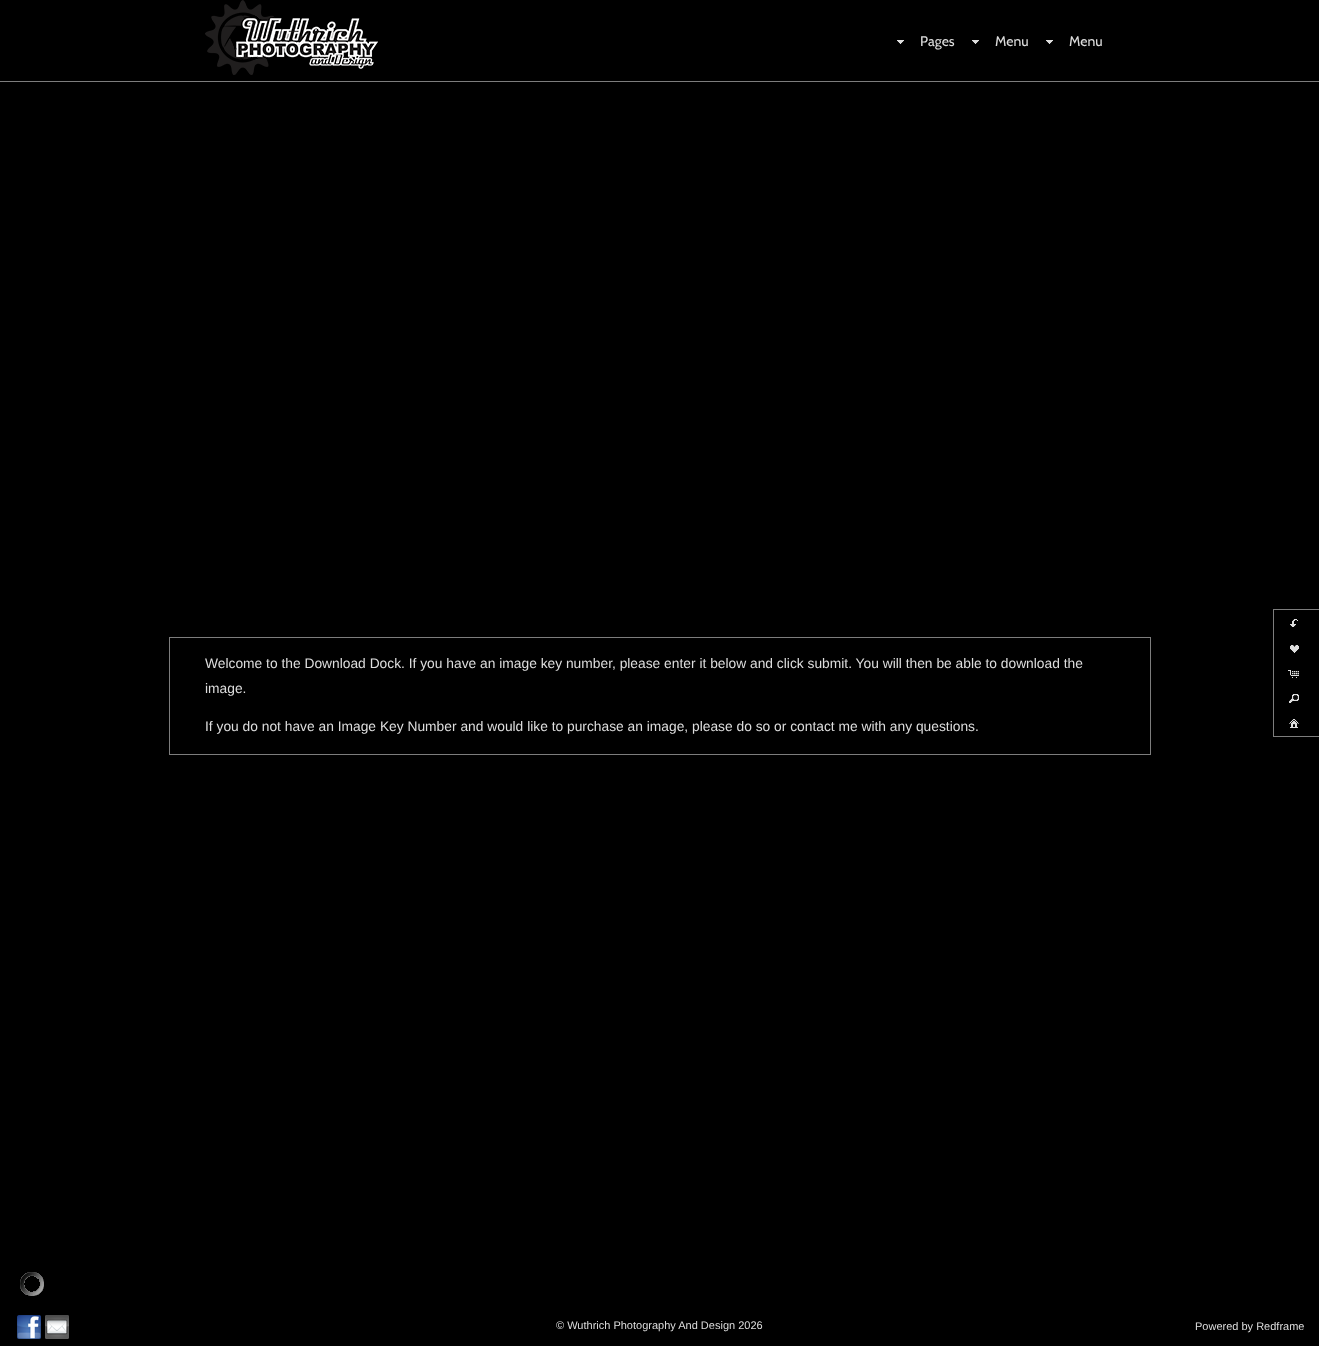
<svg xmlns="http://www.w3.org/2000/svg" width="1319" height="1346">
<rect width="100%" height="100%" fill="#000"/>
<rect y="81" width="1319" height="1" fill="#7d7d7d"/>
<image x="205" y="0" width="173" height="75" href="media/1.png"/>
<image x="897" y="40" width="7" height="4" href="media/2.png"/>
<text x="920" y="46" style="font-family:Cabin;font-size:14px;fill:#ddd">Pages</text>
<image x="972" y="40" width="7" height="4" href="media/2.png"/>
<text x="995" y="46" style="font-family:Cabin;font-size:14px;fill:#ddd">Menu</text>
<image x="1046" y="40" width="7" height="4" href="media/2.png"/>
<text x="1069" y="46" style="font-family:Cabin;font-size:14px;fill:#ddd">Menu</text>
<rect x="169.5" y="637.5" width="981" height="117" fill="none" stroke="#7d7d7d"/>
<text x="205" y="668" style="font-family:Liberation Sans;font-size:13.8px;fill:#ddd">Welcome to the Download Dock. If you have an image key number, please enter it below and click submit. You will then be able to download the</text>
<text x="205" y="693" style="font-family:Liberation Sans;font-size:13.8px;fill:#ddd">image.</text>
<text x="205" y="731" style="font-family:Liberation Sans;font-size:13.8px;fill:#ddd">If you do not have an Image Key Number and would like to purchase an image, please do so or contact me with any questions.</text>
<image x="17" y="1315" width="24" height="24" href="media/3.png"/>
<image x="45" y="1315" width="24" height="24" href="media/4.png"/>
<text x="556" y="1329" style="font-family:Liberation Sans;font-size:11px;fill:#ddd">© Wuthrich Photography And Design 2026</text>
<text x="1195" y="1330" style="font-family:Liberation Sans;font-size:11px;fill:#ddd">Powered by Redframe</text>
<rect x="1273" y="609" width="46" height="1" fill="#7d7d7d"/>
<rect x="1273" y="736" width="46" height="1" fill="#7d7d7d"/>
<rect x="1273" y="609" width="1" height="128" fill="#7d7d7d"/>
<image x="1290" y="619" width="8" height="8" href="media/5.png"/>
<image x="1290" y="645" width="9" height="8" href="media/6.png"/>
<image x="1288" y="670" width="11" height="8" href="media/7.png"/>
<image x="1289" y="694" width="10" height="9" href="media/8.png"/>
<image x="1289" y="719" width="10" height="9" href="media/9.png"/>
<image x="20" y="1272" width="24" height="24" href="media/10.png"/>
</svg>
